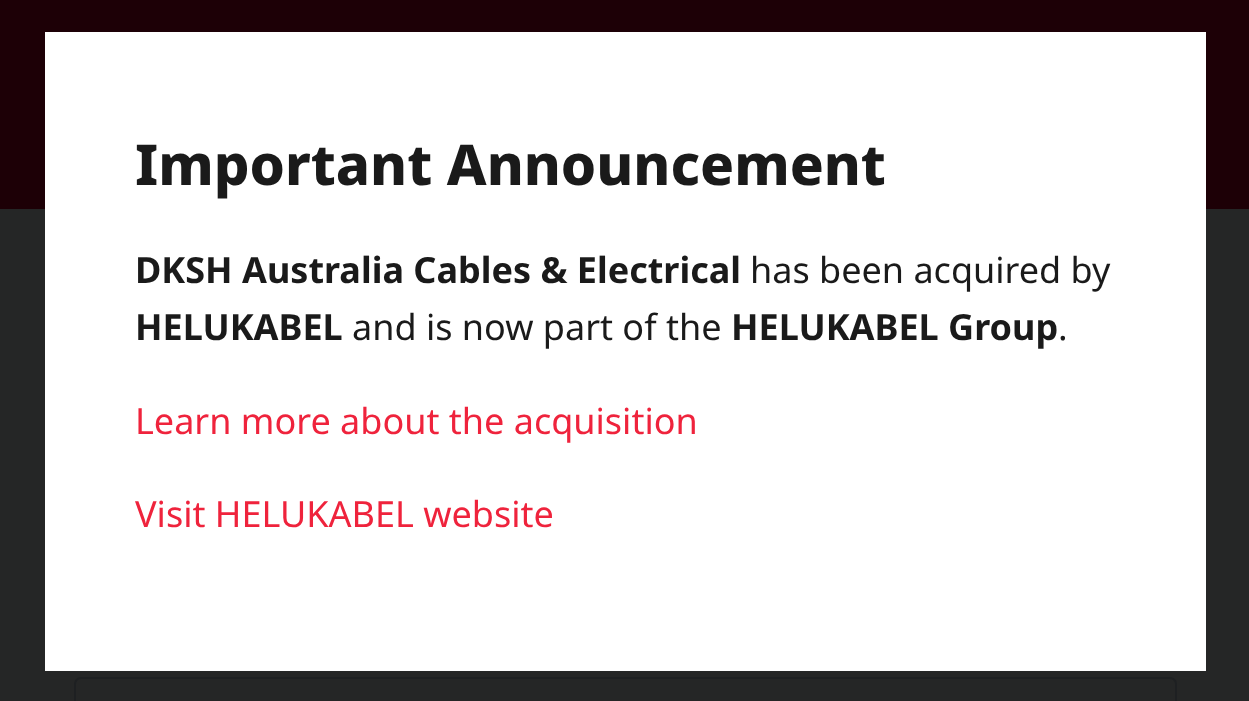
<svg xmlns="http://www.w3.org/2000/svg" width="1249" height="701">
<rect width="100%" height="100%" fill="#252626"/>
<rect width="1249" height="209" fill="#1d0006"/>
<rect x="75" y="678" width="1101" height="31" rx="6" fill="none" stroke="#1e2022" stroke-width="2"/>
<rect x="45" y="32" width="1161" height="639" fill="#fff"/>
<text x="135" y="185" style="font-family:Noto Sans;font-size:56.25px;font-weight:800;fill:#1a1a1a">Important Announcement</text>
<text x="135" y="283" style="font-family:Noto Sans;font-size:36px;font-weight:bold;fill:#1a1a1a">DKSH Australia Cables &amp; Electrical</text>
<text x="750" y="283" style="font-family:Noto Sans;font-size:36px;fill:#1a1a1a">has been acquired by</text>
<text x="135" y="340" style="font-family:Noto Sans;font-size:36px;font-weight:bold;fill:#1a1a1a">HELUKABEL</text>
<text x="352" y="340" style="font-family:Noto Sans;font-size:36px;fill:#1a1a1a">and is now part of the</text>
<text x="731" y="340" style="font-family:Noto Sans;font-size:36px;font-weight:bold;fill:#1a1a1a">HELUKABEL Group</text>
<text x="1058" y="340" style="font-family:Noto Sans;font-size:36px;fill:#1a1a1a">.</text>
<text x="135" y="434" style="font-family:Noto Sans;font-size:36px;fill:#ef233c">Learn more about the acquisition</text>
<text x="135" y="527" style="font-family:Noto Sans;font-size:36px;fill:#ef233c">Visit HELUKABEL website</text>
</svg>
